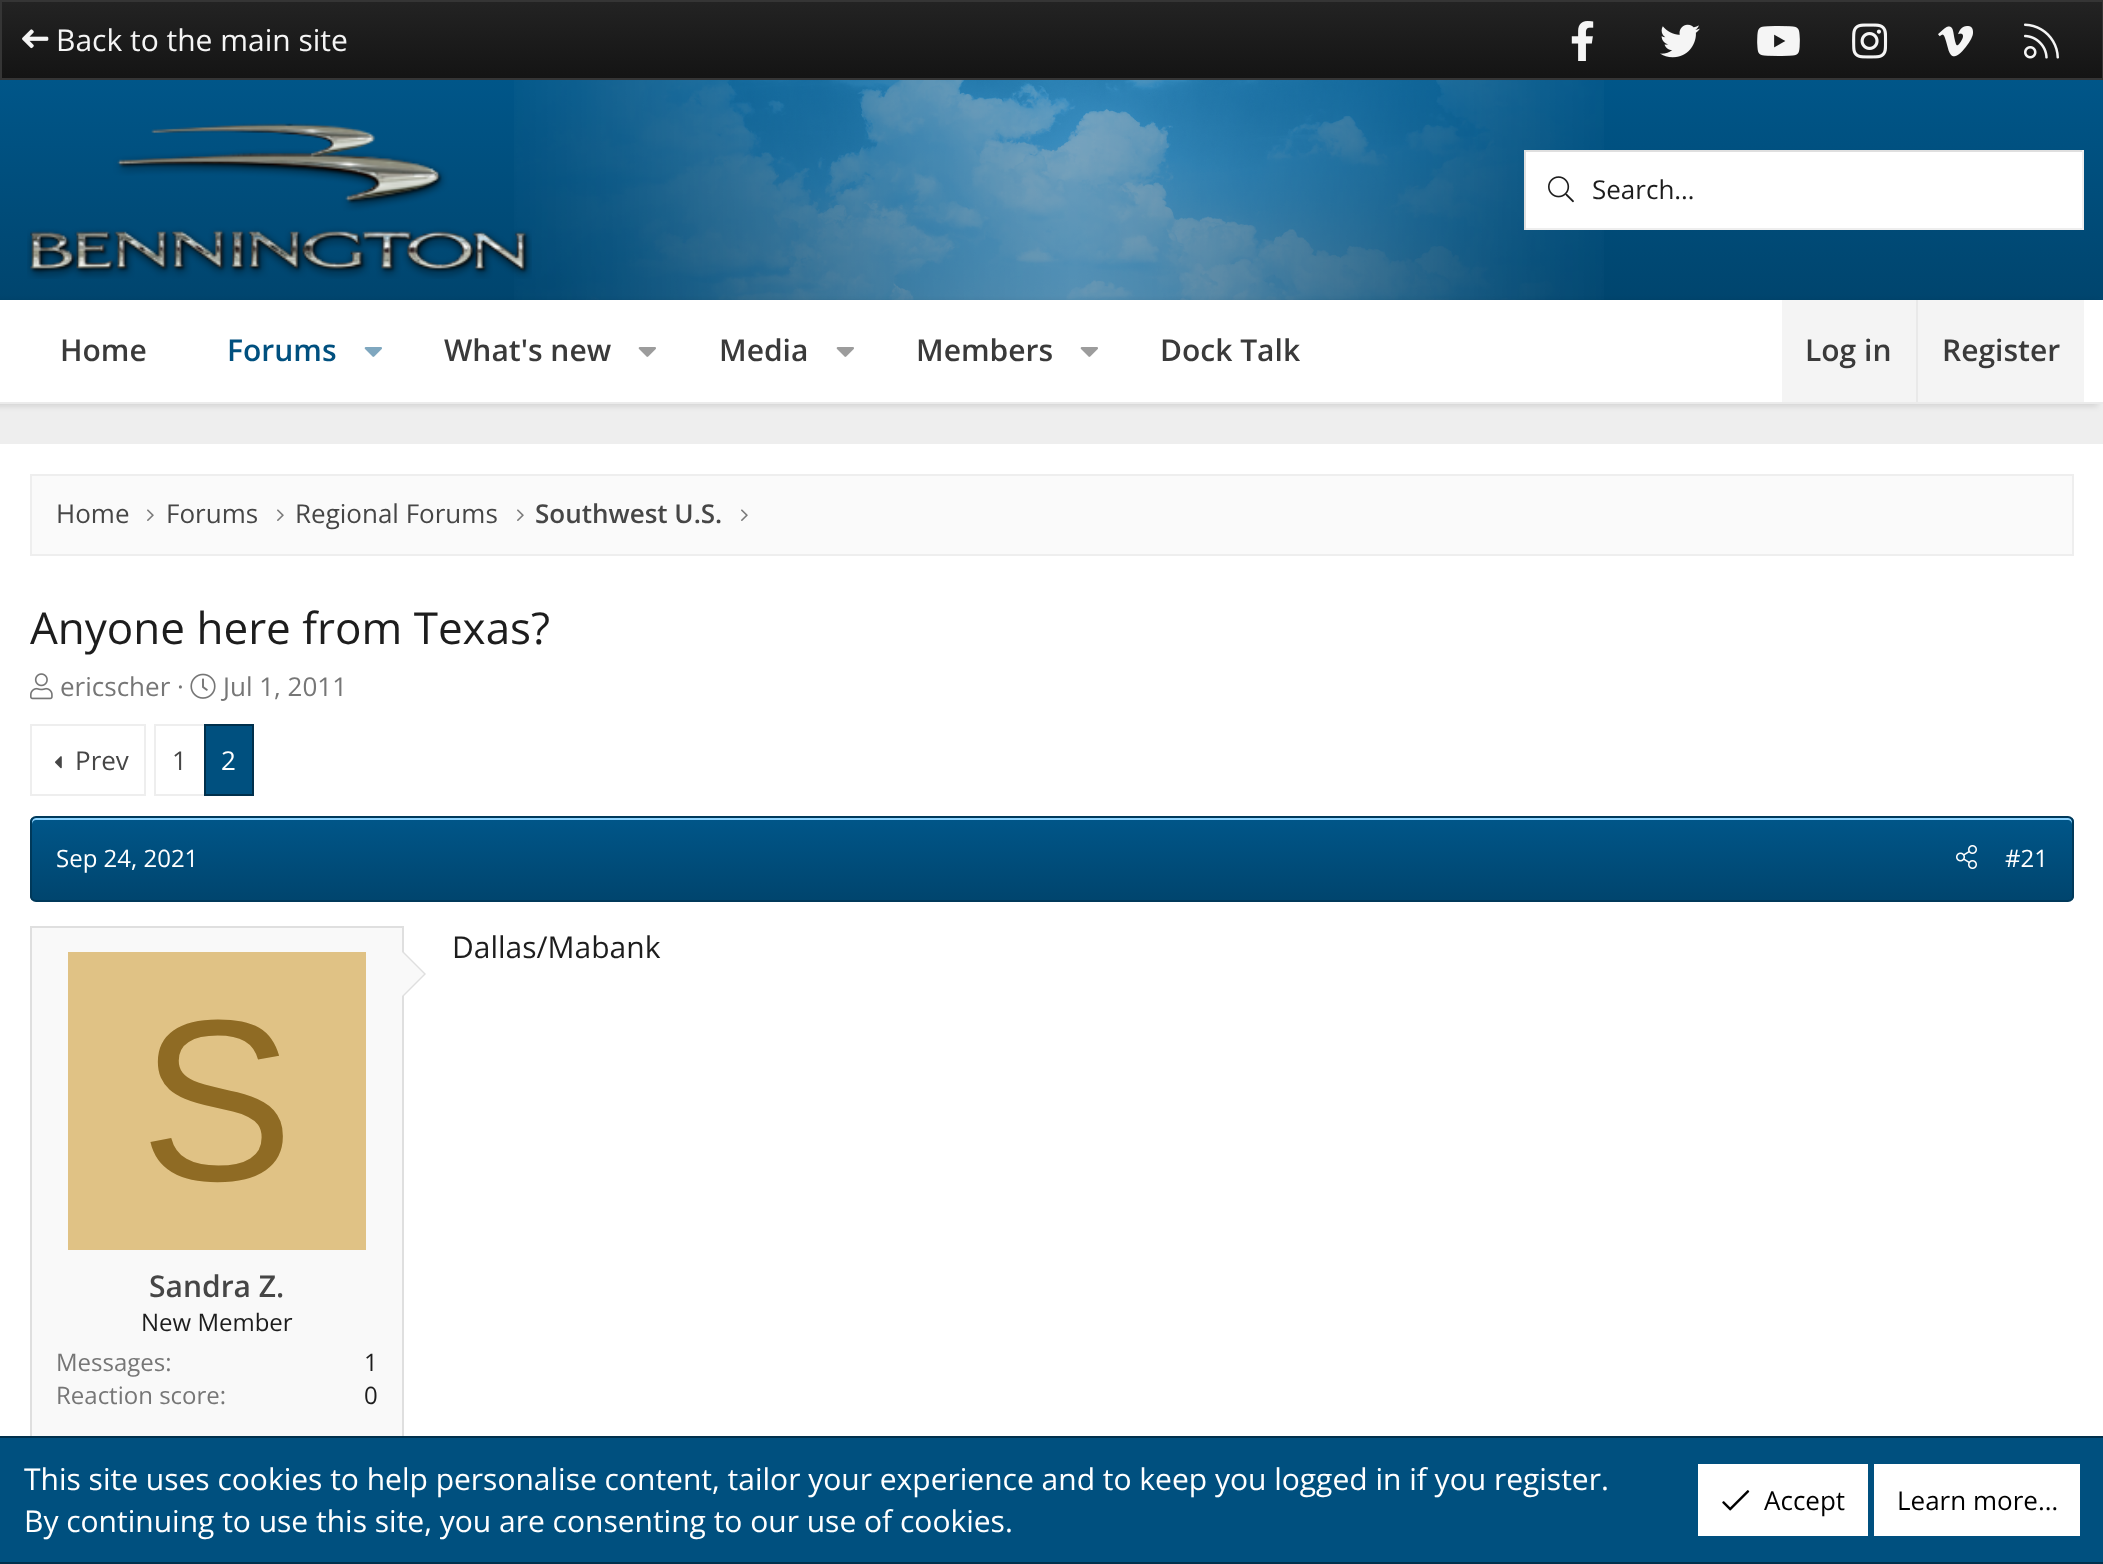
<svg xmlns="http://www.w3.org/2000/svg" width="2103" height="1564">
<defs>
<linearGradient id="g1" gradientUnits="userSpaceOnUse" x1="1052" y1="2" x2="1052" y2="78"><stop offset="0" stop-color="#232323"/><stop offset="1" stop-color="#141414"/></linearGradient>
<linearGradient id="g2" gradientUnits="userSpaceOnUse" x1="1052" y1="80" x2="1052" y2="300"><stop offset="0" stop-color="#005689"/><stop offset="1" stop-color="#00456e"/></linearGradient>
<clipPath id="clip1"><rect x="30" y="816" width="2044" height="86" rx="6"/></clipPath>
<linearGradient id="g3" gradientUnits="userSpaceOnUse" x1="1052" y1="818" x2="1052" y2="900"><stop offset="0" stop-color="#005689"/><stop offset="1" stop-color="#00456e"/></linearGradient>
</defs>
<rect width="100%" height="100%" fill="#eee"/>
<rect x="2" y="2" width="2100" height="76" fill="url(#g1)"/>
<rect x="1" y="1" width="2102" height="78" fill="none" stroke="#353535" stroke-width="2"/>
<image x="22" y="29" width="27" height="20" href="media/1.png"/>
<text x="56" y="51" style="font-family:Open Sans;font-size:30px;fill:#f5f5f5">Back to the main site</text>
<image x="1571" y="21" width="23" height="40" href="media/2.png"/>
<image x="1660" y="24" width="40" height="34" href="media/3.png"/>
<image x="1757" y="26" width="43" height="30" href="media/4.png"/>
<image x="1852" y="23" width="36" height="36" href="media/5.png"/>
<image x="1938" y="26" width="35" height="31" href="media/6.png"/>
<image x="2024" y="23" width="35" height="36" href="media/7.png"/>
<rect y="80" width="2103" height="220" fill="url(#g2)"/>
<image x="514" y="80" width="1090" height="220" href="media/8.png"/>
<image x="27" y="123" width="505" height="156" href="media/9.png"/>
<rect x="1526" y="152" width="556" height="76" fill="#fff"/>
<image x="1548" y="176" width="26" height="27" href="media/10.png"/>
<rect x="1524" y="150" width="560" height="2" fill="#dfdfdf"/>
<rect x="2082" y="150" width="2" height="80" fill="#eee"/>
<rect x="1524" y="228" width="560" height="2" fill="#eee"/>
<rect x="1524" y="150" width="2" height="80" fill="#dfdfdf"/>
<text x="1592" y="199" style="font-family:Open Sans;font-size:26px;fill:#1d1d1d">Search…</text>
<rect x="-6" y="302" width="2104" height="104" fill="#0000001f" filter="blur(3px)"/>
<rect y="300" width="2103" height="102" fill="#fff"/>
<rect y="402" width="2103" height="2" fill="#ebebeb"/>
<text x="60" y="361" style="font-family:Open Sans;font-size:30px;font-weight:600;fill:#3a3a3a">Home</text>
<text x="227" y="361" style="font-family:Open Sans;font-size:30px;font-weight:600;fill:#00507f">Forums</text>
<image x="364" y="347" width="18" height="10" href="media/11.png"/>
<text x="444" y="361" style="font-family:Open Sans;font-size:30px;font-weight:600;fill:#3a3a3a">What's new</text>
<image x="638" y="347" width="18" height="10" href="media/12.png"/>
<text x="719" y="361" style="font-family:Open Sans;font-size:30px;font-weight:600;fill:#3a3a3a">Media</text>
<image x="836" y="347" width="18" height="10" href="media/12.png"/>
<text x="916" y="361" style="font-family:Open Sans;font-size:30px;font-weight:600;fill:#3a3a3a">Members</text>
<image x="1080" y="347" width="18" height="10" href="media/12.png"/>
<text x="1160" y="361" style="font-family:Open Sans;font-size:30px;font-weight:600;fill:#3a3a3a">Dock Talk</text>
<rect x="1782" y="300" width="302" height="102" fill="#f4f4f4"/>
<text x="1805" y="361" style="font-family:Open Sans;font-size:30px;font-weight:600;fill:#3a3a3a">Log in</text>
<rect x="1916" y="300" width="2" height="102" fill="#e9e9e9"/>
<text x="1942" y="361" style="font-family:Open Sans;font-size:30px;font-weight:600;fill:#3a3a3a">Register</text>
<rect y="444" width="2103" height="992" fill="#fff"/>
<rect x="31" y="475" width="2042" height="80" fill="#fafafa" stroke="#eee" stroke-width="2"/>
<text x="56" y="523" style="font-family:Open Sans;font-size:26px;fill:#464646">Home</text>
<image x="147" y="509" width="7" height="12" href="media/13.png"/>
<text x="166" y="523" style="font-family:Open Sans;font-size:26px;fill:#464646">Forums</text>
<image x="277" y="509" width="7" height="12" href="media/13.png"/>
<text x="295" y="523" style="font-family:Open Sans;font-size:26px;fill:#464646">Regional Forums</text>
<image x="517" y="509" width="7" height="12" href="media/13.png"/>
<text x="535" y="523" style="font-family:Open Sans;font-size:26px;font-weight:600;fill:#464646">Southwest U.S.</text>
<image x="741" y="509" width="7" height="12" href="media/13.png"/>
<text x="30" y="644" style="font-family:Open Sans;font-size:44px;fill:#1d1d1d">Anyone here from Texas?</text>
<image x="30" y="673" width="23" height="27" href="media/14.png"/>
<text x="60" y="696" style="font-family:Open Sans;font-size:26px;fill:#767676">ericscher ·</text>
<image x="190" y="673" width="26" height="26" href="media/15.png"/>
<text x="223" y="696" style="font-family:Open Sans;font-size:26px;fill:#767676">Jul 1, 2011</text>
<rect x="31" y="725" width="114" height="70" fill="none" stroke="#eee" stroke-width="2"/>
<image x="55" y="756" width="7" height="13" href="media/16.png"/>
<text x="75" y="770" style="font-family:Open Sans;font-size:26px;fill:#464646">Prev</text>
<rect x="154" y="724" width="50" height="2" fill="#eee"/>
<rect x="154" y="794" width="50" height="2" fill="#eee"/>
<rect x="154" y="724" width="2" height="72" fill="#eee"/>
<text x="172" y="770" style="font-family:Open Sans;font-size:26px;fill:#464646">1</text>
<rect x="205" y="725" width="48" height="70" fill="#00507f" stroke="#00304c" stroke-width="2"/>
<text x="221" y="770" style="font-family:Open Sans;font-size:26px;fill:#fff">2</text>
<g clip-path="url(#clip1)">
<rect x="30" y="818" width="2044" height="82" fill="url(#g3)"/>
</g>
<path d="M36 820h2032c2 0 4 2 4 4v-2c0-2-2-4-4-4h-2032c-2 0-4 2-4 4v2c0-2 2-4 4-4z" fill="#8ed4ff"/>
<rect x="31" y="817" width="2042" height="84" rx="5" fill="none" stroke="#00395a" stroke-width="2"/>
<text x="56" y="867" style="font-family:Open Sans;font-size:24px;fill:#fff">Sep 24, 2021</text>
<image x="1956" y="845" width="21" height="24" href="media/17.png"/>
<text x="2005" y="867" style="font-family:Open Sans;font-size:24px;fill:#fff">#21</text>
<text x="452" y="958" style="font-family:Open Sans;font-size:30px;fill:#1d1d1d">‍Dallas/Mabank</text>
<rect x="32" y="928" width="370" height="508" fill="#f9f9f9"/>
<rect x="31" y="927" width="372" height="512" fill="none" stroke="#dfdfdf" stroke-width="2"/>
<path d="M402 998v-48l24 24z" fill="#dfdfdf"/>
<path d="M402 996v-44l22 22z" fill="#f9f9f9"/>
<rect x="68" y="952" width="298" height="298" fill="#e0c285"/>
<text x="140" y="1180" style="font-family:Liberation Sans;font-size:230px;fill:#8f6b24">S</text>
<text x="149" y="1297" style="font-family:Open Sans;font-size:30px;font-weight:600;fill:#464646">Sandra Z.</text>
<text x="141" y="1331" style="font-family:Open Sans;font-size:24px;fill:#1d1d1d">New Member</text>
<text x="56" y="1371" style="font-family:Open Sans;font-size:24px;fill:#767676">Messages:</text>
<text x="364" y="1371" style="font-family:Open Sans;font-size:24px;fill:#1d1d1d">1</text>
<text x="56" y="1404" style="font-family:Open Sans;font-size:24px;fill:#767676">Reaction score:</text>
<text x="364" y="1404" style="font-family:Open Sans;font-size:24px;fill:#1d1d1d">0</text>
<rect y="1438" width="2103" height="124" fill="#00507f"/>
<rect y="1436" width="2103" height="2" fill="#00304c"/>
<rect y="1562" width="2103" height="2" fill="#00304c"/>
<text x="24" y="1490" style="font-family:Open Sans;font-size:30px;fill:#fff">This site uses cookies to help personalise content, tailor your experience and to keep you logged in if you register.</text>
<text x="24" y="1532" style="font-family:Open Sans;font-size:30px;fill:#fff">By continuing to use this site, you are consenting to our use of cookies.</text>
<rect x="1698" y="1464" width="170" height="72" fill="#fff"/>
<image x="1722" y="1490" width="28" height="21" href="media/18.png"/>
<text x="1764" y="1510" style="font-family:Open Sans;font-size:26px;fill:#000">Accept</text>
<rect x="1874" y="1464" width="206" height="72" fill="#fff"/>
<text x="1897" y="1510" style="font-family:Open Sans;font-size:26px;fill:#000">Learn more…</text>
</svg>
